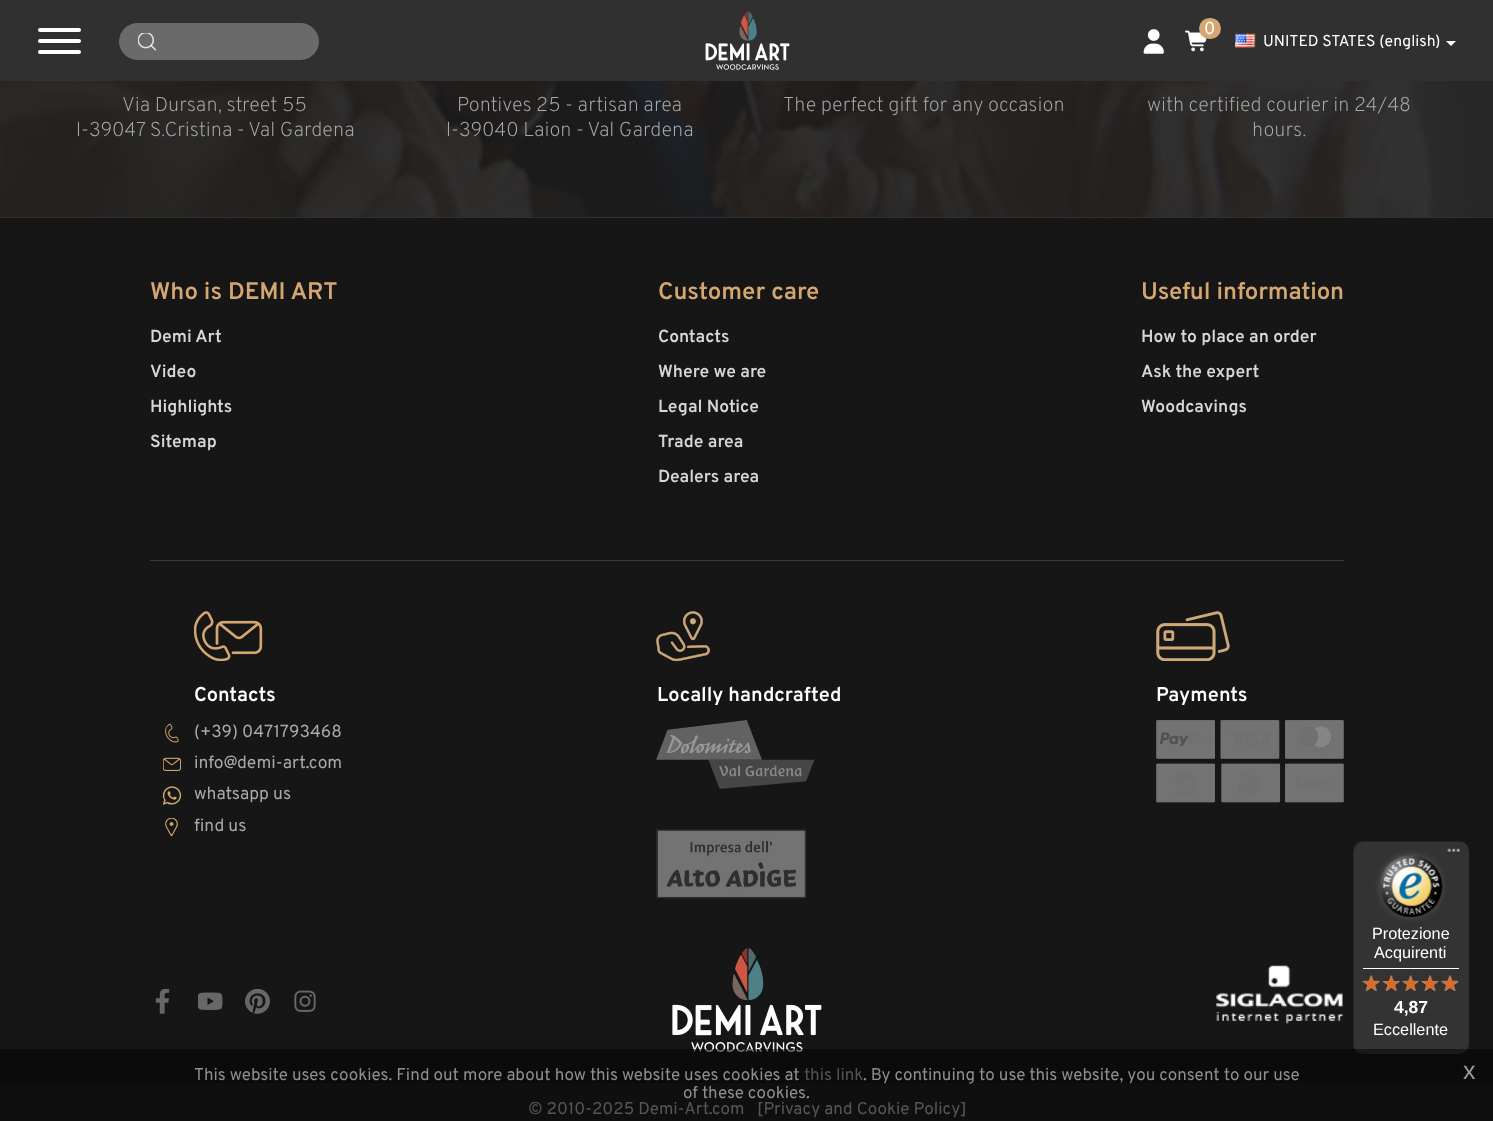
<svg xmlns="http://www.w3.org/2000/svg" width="1493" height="1121">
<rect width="100%" height="100%" fill="#303030"/>
<rect x="38" y="28" width="43" height="4" rx="2" fill="#fff"/>
<rect x="38" y="39" width="43" height="4" rx="2" fill="#fff"/>
<rect x="38" y="50" width="43" height="4" rx="2" fill="#fff"/>
<rect x="119" y="23" width="200" height="37" rx="18.5" fill="#6a6a6a"/>
<image x="138" y="33" width="18" height="18" href="media/1.png"/>
<image x="705" y="11" width="85" height="59" href="media/2.png"/>
<image x="1143" y="29" width="21" height="25" href="media/3.png"/>
<image x="1185" y="30" width="22" height="22" href="media/4.png"/>
<rect x="1199" y="18" width="22" height="21" rx="10.5" fill="#d5a770"/>
<text x="1204" y="34" style="font-family:Overpass;font-size:17.5px;fill:#fff">0</text>
<image x="1235" y="33" width="21" height="15" href="media/5.png"/>
<text x="1263" y="46" style="font-family:Overpass;font-size:15.75px;fill:#fff">UNITED STATES (english)</text>
<path d="M1446 41h10l-5 5z" fill="#fff"/>
<image x="0" y="81" width="1493" height="136" href="media/6.png"/>
<text x="122" y="111" style="font-family:Overpass;font-size:20px;font-weight:200;fill:#a8a8a8">Via Dursan, street 55</text>
<text x="76" y="136" style="font-family:Overpass;font-size:20px;font-weight:200;fill:#a8a8a8">l-39047 S.Cristina - Val Gardena</text>
<text x="457" y="111" style="font-family:Overpass;font-size:20px;font-weight:200;fill:#a8a8a8">Pontives 25 - artisan area</text>
<text x="446" y="136" style="font-family:Overpass;font-size:20px;font-weight:200;fill:#a8a8a8">l-39040 Laion - Val Gardena</text>
<text x="783" y="111" style="font-family:Overpass;font-size:20px;font-weight:200;fill:#a8a8a8">The perfect gift for any occasion</text>
<text x="1147" y="111" style="font-family:Overpass;font-size:20px;font-weight:200;fill:#a8a8a8">with certified courier in 24/48</text>
<text x="1252" y="136" style="font-family:Overpass;font-size:20px;font-weight:200;fill:#a8a8a8">hours.</text>
<rect y="218" width="1493" height="865" fill="#161616"/>
<rect x="150" y="560" width="1194" height="1" fill="#3b3b3b"/>
<text x="150" y="299" style="font-family:Overpass;font-size:24px;font-weight:600;fill:#d5a770">Who is DEMI ART</text>
<text x="150" y="342" style="font-family:Overpass;font-size:17.5px;font-weight:600;fill:#d7d7d7">Demi Art</text>
<text x="150" y="377" style="font-family:Overpass;font-size:17.5px;font-weight:600;fill:#d7d7d7">Video</text>
<text x="150" y="412" style="font-family:Overpass;font-size:17.5px;font-weight:600;fill:#d7d7d7">Highlights</text>
<text x="150" y="447" style="font-family:Overpass;font-size:17.5px;font-weight:600;fill:#d7d7d7">Sitemap</text>
<text x="658" y="299" style="font-family:Overpass;font-size:24px;font-weight:600;fill:#d5a770">Customer care</text>
<text x="658" y="342" style="font-family:Overpass;font-size:17.5px;font-weight:600;fill:#d7d7d7">Contacts</text>
<text x="658" y="377" style="font-family:Overpass;font-size:17.5px;font-weight:600;fill:#d7d7d7">Where we are</text>
<text x="658" y="412" style="font-family:Overpass;font-size:17.5px;font-weight:600;fill:#d7d7d7">Legal Notice</text>
<text x="658" y="447" style="font-family:Overpass;font-size:17.5px;font-weight:600;fill:#d7d7d7">Trade area</text>
<text x="658" y="482" style="font-family:Overpass;font-size:17.5px;font-weight:600;fill:#d7d7d7">Dealers area</text>
<text x="1141" y="299" style="font-family:Overpass;font-size:24px;font-weight:600;fill:#d5a770">Useful information</text>
<text x="1141" y="342" style="font-family:Overpass;font-size:17.5px;font-weight:600;fill:#d7d7d7">How to place an order</text>
<text x="1141" y="377" style="font-family:Overpass;font-size:17.5px;font-weight:600;fill:#d7d7d7">Ask the expert</text>
<text x="1141" y="412" style="font-family:Overpass;font-size:17.5px;font-weight:600;fill:#d7d7d7">Woodcavings</text>
<image x="194" y="611" width="69" height="50" href="media/7.png"/>
<text x="194" y="701" style="font-family:Overpass;font-size:20px;font-weight:600;fill:#fff">Contacts</text>
<image x="165" y="724" width="14" height="19" href="media/8.png"/>
<text x="194" y="737" style="font-family:Overpass;font-size:17.5px;fill:#a8a8a8">(+39) 0471793468</text>
<image x="163" y="757" width="18" height="14" href="media/9.png"/>
<text x="194" y="768" style="font-family:Overpass;font-size:17.5px;fill:#a8a8a8">info@demi-art.com</text>
<image x="163" y="786" width="18" height="19" href="media/10.png"/>
<text x="194" y="799" style="font-family:Overpass;font-size:17.5px;fill:#a8a8a8">whatsapp us</text>
<image x="165" y="818" width="13" height="18" href="media/11.png"/>
<text x="194" y="831" style="font-family:Overpass;font-size:17.5px;fill:#a8a8a8">find us</text>
<image x="656" y="611" width="54" height="50" href="media/12.png"/>
<text x="657" y="701" style="font-family:Overpass;font-size:20px;font-weight:600;fill:#fff">Locally handcrafted</text>
<image x="656" y="720" width="159" height="69" href="media/13.png"/>
<image x="656" y="829" width="151" height="70" href="media/14.png"/>
<image x="1156" y="611" width="74" height="50" href="media/15.png"/>
<text x="1156" y="701" style="font-family:Overpass;font-size:20px;font-weight:600;fill:#fff">Payments</text>
<image x="1156" y="720" width="188" height="83" href="media/16.png"/>
<image x="155" y="989" width="15" height="25" href="media/17.png"/>
<image x="198" y="992" width="25" height="18" href="media/18.png"/>
<image x="245" y="989" width="25" height="25" href="media/19.png"/>
<image x="294" y="990" width="22" height="22" href="media/20.png"/>
<image x="672" y="948" width="150" height="104" href="media/21.png"/>
<image x="1216" y="965" width="127" height="59" href="media/22.png"/>
<rect y="1083" width="1493" height="38" fill="#201f1e"/>
<text x="528" y="1114" style="font-family:Overpass;font-size:17px;fill:#a8a8a8">© 2010-2025 Demi-Art.com</text>
<text x="757" y="1114" style="font-family:Overpass;font-size:17px;fill:#a8a8a8">[Privacy and Cookie Policy]</text>
<rect x="1353" y="841" width="116" height="213" rx="10" fill="#333"/>
<path d="M1364 842h96c3 0 5 1 7 2c-2-2-5-3-8-3h-96c-6 0-10 4-10 10v193c0 2 1 5 2 6c-1-1-1-3-1-5v-193c0-5 4-10 10-10z" fill="#00000040"/>
<rect y="1049" width="1493" height="72" fill="#0000007d"/>
<text x="194" y="1080" style="font-family:Overpass;font-size:17px;fill:#8f8f8f">This website uses cookies. Find out more about how this website uses cookies at</text>
<text x="804" y="1080" style="font-family:Overpass;font-size:17px;fill:#545454">this link</text>
<text x="863" y="1080" style="font-family:Overpass;font-size:17px;fill:#8f8f8f">. By continuing to use this website, you consent to our use</text>
<text x="1463" y="1079" style="font-family:Liberation Sans;font-size:25px;fill:#9d9d9d">x</text>
<text x="683" y="1098" style="font-family:Overpass;font-size:17px;fill:#8f8f8f">of these cookies.</text>
<rect x="1386" y="861" width="50" height="50" rx="25" fill="#ffffffbf" filter="blur(6px)"/>
<image x="1447" y="848" width="13" height="4" href="media/23.png"/>
<image x="1380" y="855" width="63" height="63" href="media/24.png"/>
<text x="1372" y="939" style="font-family:Liberation Sans;font-size:16.25px;fill:#fff">Protezione</text>
<text x="1374" y="958" style="font-family:Liberation Sans;font-size:16.25px;fill:#fff">Acquirenti</text>
<rect x="1363" y="968" width="96" height="1" fill="#fff"/>
<image x="1362" y="975" width="18" height="16" href="media/25.png"/>
<image x="1382" y="975" width="18" height="16" href="media/26.png"/>
<image x="1402" y="975" width="17" height="16" href="media/27.png"/>
<image x="1421" y="975" width="18" height="16" href="media/28.png"/>
<image x="1441" y="975" width="18" height="16" href="media/29.png"/>
<image x="1362" y="975" width="18" height="16" href="media/30.png"/>
<image x="1382" y="975" width="18" height="16" href="media/31.png"/>
<image x="1402" y="975" width="17" height="16" href="media/32.png"/>
<image x="1421" y="975" width="18" height="16" href="media/33.png"/>
<image x="1441" y="975" width="16" height="16" href="media/34.png"/>
<text x="1394" y="1013" style="font-family:Liberation Sans;font-size:17.5px;font-weight:bold;fill:#fff">4,87</text>
<text x="1373" y="1035" style="font-family:Liberation Sans;font-size:16.25px;fill:#fff">Eccellente</text>
</svg>
